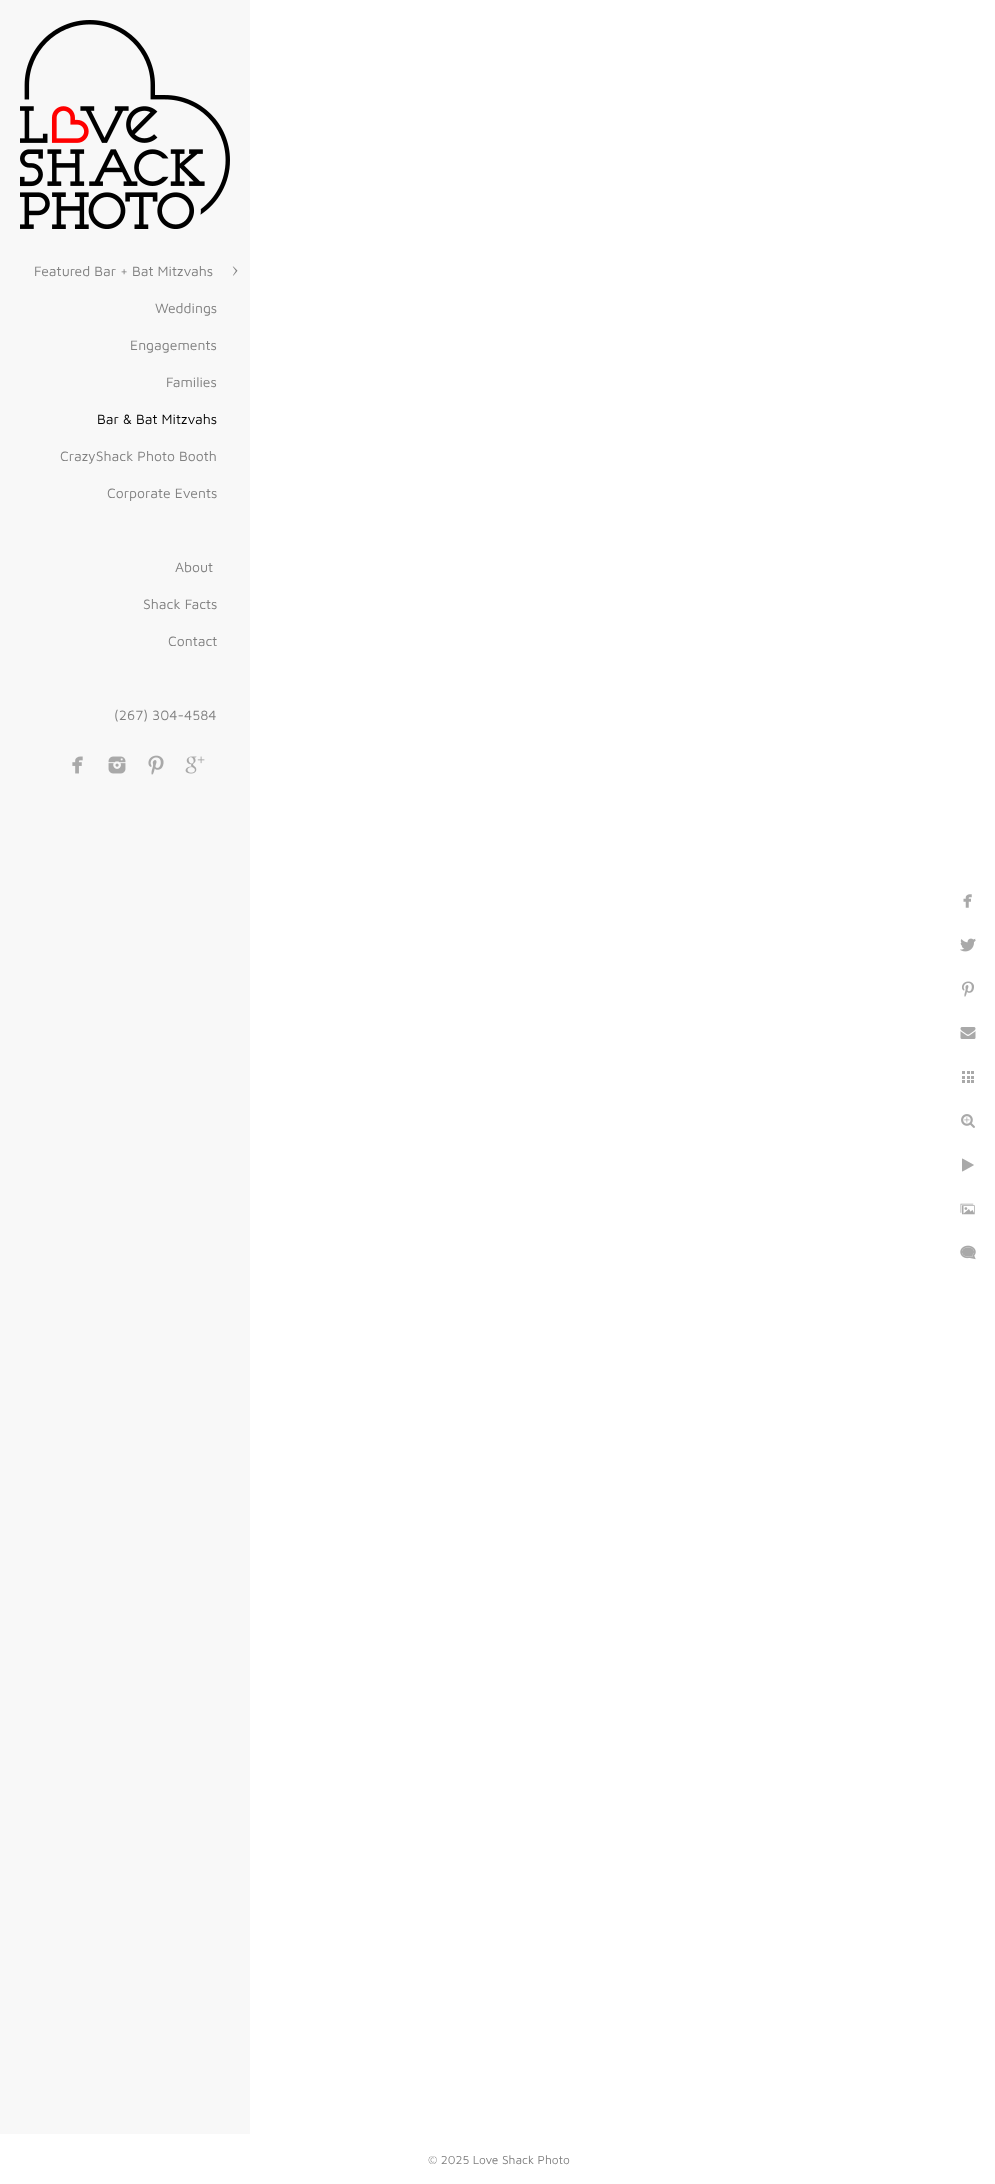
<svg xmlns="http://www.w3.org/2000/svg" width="995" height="2184">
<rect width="100%" height="100%" fill="#fff"/>
<rect width="250" height="2134" fill="#f8f8f8"/>
<image x="20" y="20" width="210" height="209" href="media/1.png"/>
<text x="34" y="276" style="font-family:Maven Pro;font-size:14px;fill:#808080">Featured Bar + Bat Mitzvahs</text>
<image x="232" y="266" width="6" height="10" href="media/2.png"/>
<text x="155" y="313" style="font-family:Maven Pro;font-size:14px;fill:#808080">Weddings</text>
<text x="130" y="350" style="font-family:Maven Pro;font-size:14px;fill:#808080">Engagements</text>
<text x="166" y="387" style="font-family:Maven Pro;font-size:14px;fill:#808080">Families</text>
<text x="97" y="424" style="font-family:Maven Pro;font-size:14px;fill:#000">Bar &amp; Bat Mitzvahs</text>
<text x="60" y="461" style="font-family:Maven Pro;font-size:14px;fill:#808080">CrazyShack Photo Booth</text>
<text x="107" y="498" style="font-family:Maven Pro;font-size:14px;fill:#808080">Corporate Events</text>
<text x="175" y="572" style="font-family:Maven Pro;font-size:14px;fill:#808080">About</text>
<text x="143" y="609" style="font-family:Maven Pro;font-size:14px;fill:#808080">Shack Facts</text>
<text x="168" y="646" style="font-family:Maven Pro;font-size:14px;fill:#808080">Contact</text>
<text x="114" y="720" style="font-family:Maven Pro;font-size:14px;fill:#808080">(267) 304-4584</text>
<image x="72" y="756" width="11" height="18" href="media/3.png"/>
<image x="108" y="756" width="18" height="18" href="media/4.png"/>
<image x="148" y="755" width="16" height="20" href="media/5.png"/>
<image x="185" y="756" width="20" height="18" href="media/6.png"/>
<image x="963" y="894" width="9" height="14" href="media/7.png"/>
<image x="960" y="938" width="16" height="14" href="media/8.png"/>
<image x="962" y="981" width="12" height="16" href="media/9.png"/>
<image x="960" y="1027" width="16" height="12" href="media/10.png"/>
<image x="962" y="1071" width="12" height="12" href="media/11.png"/>
<image x="961" y="1114" width="14" height="14" href="media/12.png"/>
<image x="962" y="1158" width="12" height="14" href="media/13.png"/>
<image x="960" y="1203" width="15" height="12" href="media/14.png"/>
<image x="960" y="1245" width="16" height="15" href="media/15.png"/>
<text x="428" y="2164" style="font-family:Maven Pro;font-size:12px;fill:#808080">© 2025 Love Shack Photo</text>
</svg>
